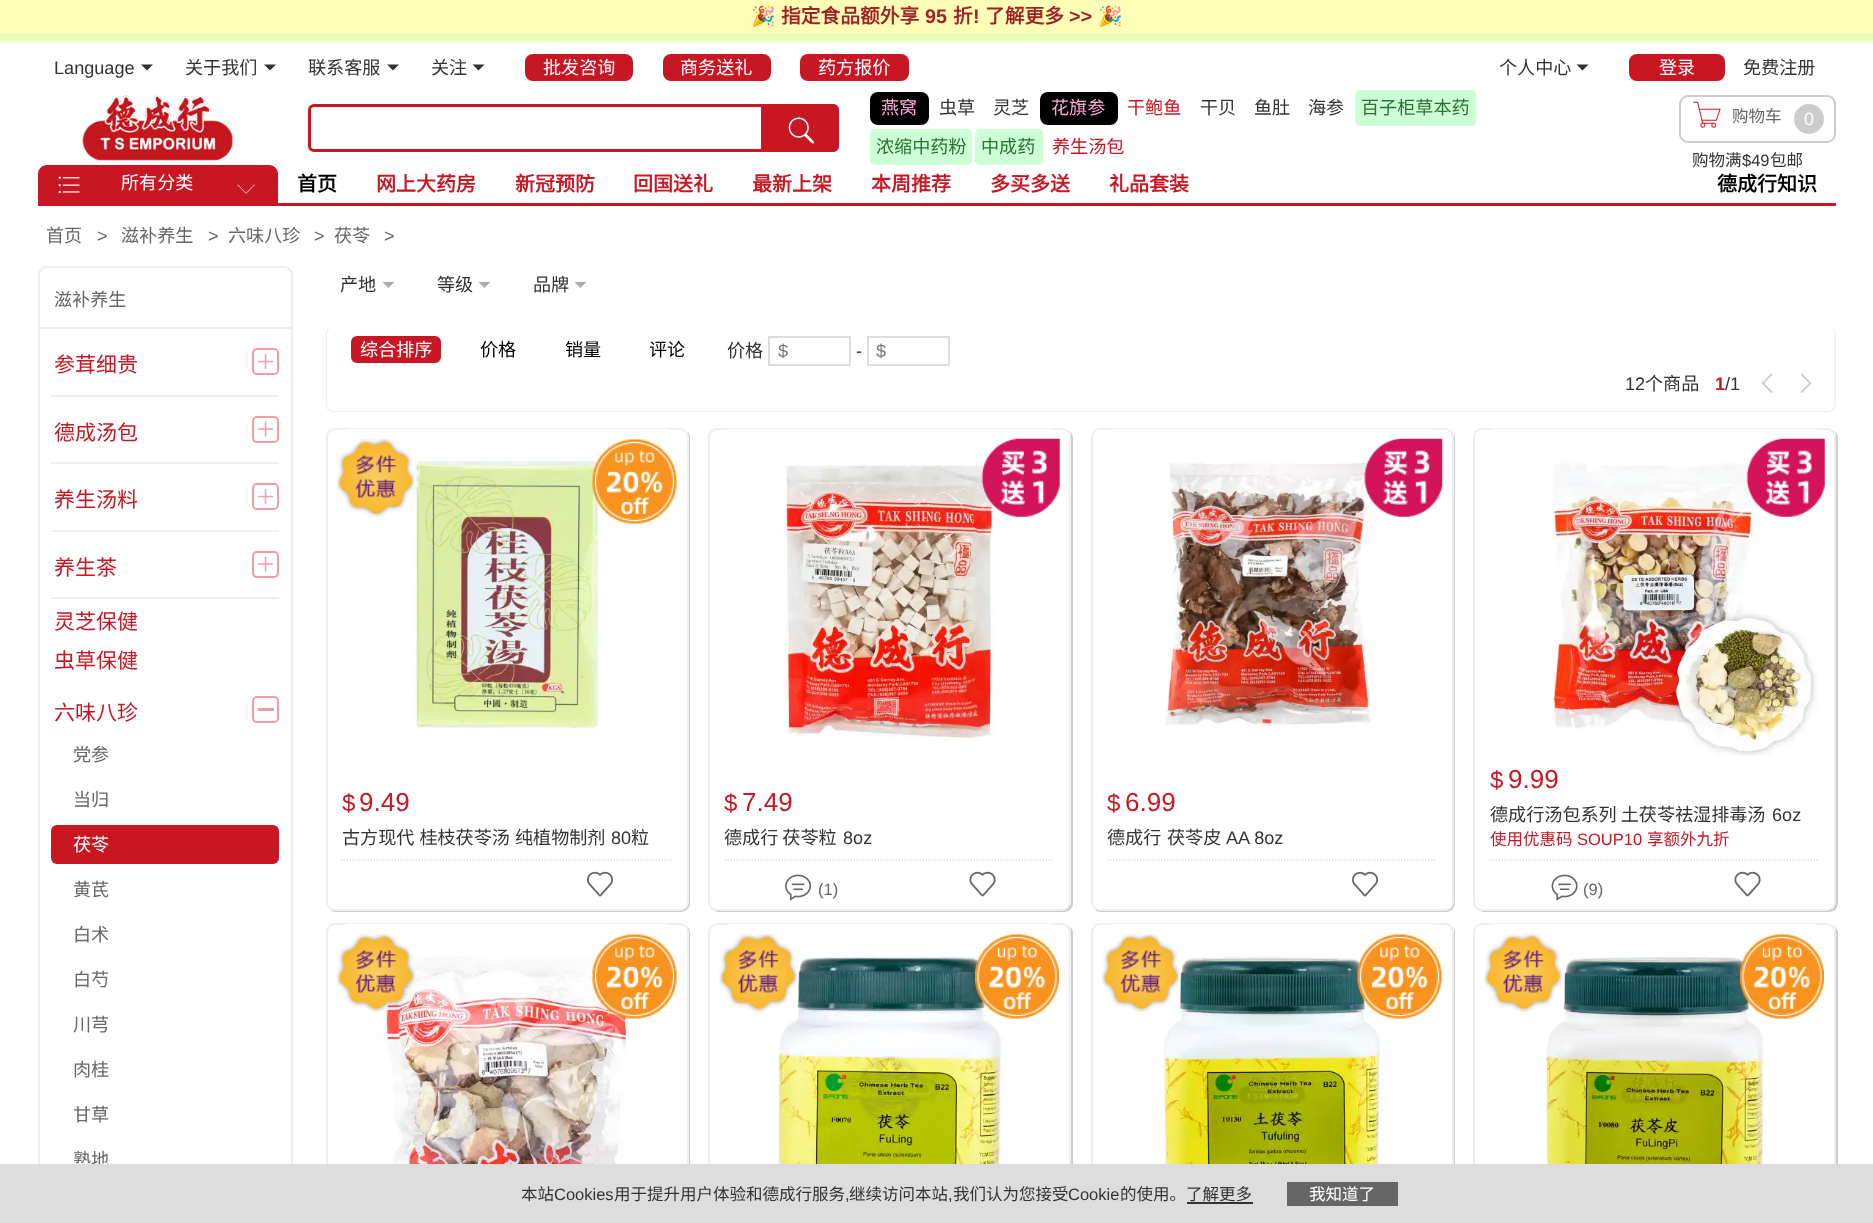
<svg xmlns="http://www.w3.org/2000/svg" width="1873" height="1223">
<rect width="100%" height="100%" fill="#fff"/>
<rect y="33" width="1873" height="9" fill="#e5ffb8"/>
<rect width="1873" height="33" fill="#feffb7"/>
<text x="751" y="23" style="font-family:Noto Color Emoji;font-size:19.75px;font-weight:bold;fill:#a12224">🎉</text>
<text x="781" y="23" style="font-family:Noto Sans CJK SC;font-size:19.75px;font-weight:bold;fill:#a12224">指定食品额外享</text>
<text x="925" y="23" style="font-family:Liberation Sans;font-size:19.75px;font-weight:bold;fill:#a12224">95</text>
<text x="953" y="23" style="font-family:Noto Sans CJK SC;font-size:19.75px;font-weight:bold;fill:#a12224">折</text>
<text x="973" y="23" style="font-family:Liberation Sans;font-size:19.75px;font-weight:bold;fill:#a12224">!</text>
<text x="985" y="23" style="font-family:Noto Sans CJK SC;font-size:19.75px;font-weight:bold;fill:#a12224">了解更多</text>
<text x="1069" y="23" style="font-family:Liberation Sans;font-size:19.75px;font-weight:bold;fill:#a12224">&gt;&gt;</text>
<text x="1098" y="23" style="font-family:Noto Color Emoji;font-size:19.75px;font-weight:bold;fill:#a12224">🎉</text>
<text x="54" y="74" style="font-family:Liberation Sans;font-size:18.1px;fill:#333">Language</text>
<path d="M141 64.5h12l-6 6z" fill="#333"/>
<text x="185" y="74" style="font-family:Noto Sans CJK SC;font-size:18.1px;fill:#333">关于我们</text>
<path d="M264 64.5h12l-6 6z" fill="#333"/>
<text x="308" y="74" style="font-family:Noto Sans CJK SC;font-size:18.1px;fill:#333">联系客服</text>
<path d="M387 64.5h12l-6 6z" fill="#333"/>
<text x="431" y="74" style="font-family:Noto Sans CJK SC;font-size:18.1px;fill:#333">关注</text>
<path d="M472.5 64.5h12l-6 6z" fill="#333"/>
<rect x="525" y="54" width="108" height="27" rx="8" fill="#c81724"/>
<text x="543" y="74" style="font-family:Noto Sans CJK SC;font-size:18.1px;fill:#fff">批发咨询</text>
<rect x="663" y="54" width="108" height="27" rx="8" fill="#c81724"/>
<text x="680" y="74" style="font-family:Noto Sans CJK SC;font-size:18.1px;fill:#fff">商务送礼</text>
<rect x="800" y="54" width="109" height="27" rx="8" fill="#c81724"/>
<text x="818" y="74" style="font-family:Noto Sans CJK SC;font-size:18.1px;fill:#fff">药方报价</text>
<text x="1499" y="74" style="font-family:Noto Sans CJK SC;font-size:18.1px;fill:#333">个人中心</text>
<path d="M1576.5 64.5h12l-6 6z" fill="#333"/>
<rect x="1629" y="54" width="96" height="27" rx="8" fill="#c81623"/>
<text x="1659" y="74" style="font-family:Noto Sans CJK SC;font-size:18.1px;fill:#fff">登录</text>
<text x="1743" y="74" style="font-family:Noto Sans CJK SC;font-size:18.1px;fill:#333">免费注册</text>
<image x="82" y="94" width="151" height="67" href="media/1.png"/>
<path d="M314 105.5h448.5v45h-448.5c-2.5 0-4.5-2-4.5-4.5v-36c0-2.5 2-4.5 4.5-4.5z" fill="none" stroke="#c81623" stroke-width="3"/>
<path d="M764 104h69c3.5 0 6 2.5 6 6v36c0 3.5-2.5 6-6 6h-69z" fill="#c81623"/>
<image x="788" y="117" width="26" height="27" href="media/2.png"/>
<rect x="870" y="92" width="59" height="33" rx="8" fill="#000"/>
<text x="881" y="114" style="font-family:Noto Sans CJK SC;font-size:18.1px;fill:#ffa8d8">燕窝</text>
<text x="939" y="114" style="font-family:Noto Sans CJK SC;font-size:18.1px;fill:#333">虫草</text>
<text x="993" y="114" style="font-family:Noto Sans CJK SC;font-size:18.1px;fill:#333">灵芝</text>
<rect x="1040" y="92" width="78" height="33" rx="8" fill="#000"/>
<text x="1051" y="114" style="font-family:Noto Sans CJK SC;font-size:18.1px;fill:#ffa8d8">花旗参</text>
<text x="1127" y="114" style="font-family:Noto Sans CJK SC;font-size:18.1px;fill:#c81623">干鲍鱼</text>
<text x="1200" y="114" style="font-family:Noto Sans CJK SC;font-size:18.1px;fill:#333">干贝</text>
<text x="1254" y="114" style="font-family:Noto Sans CJK SC;font-size:18.1px;fill:#333">鱼肚</text>
<text x="1308" y="114" style="font-family:Noto Sans CJK SC;font-size:18.1px;fill:#333">海参</text>
<rect x="1355" y="90" width="121" height="36" rx="5" fill="#ccffd5"/>
<text x="1361" y="114" style="font-family:Noto Sans CJK SC;font-size:18.1px;fill:#2a7133">百子柜草本药</text>
<rect x="870" y="129" width="102" height="36" rx="5" fill="#ccffd5"/>
<text x="876" y="153" style="font-family:Noto Sans CJK SC;font-size:18.1px;fill:#2a7133">浓缩中药粉</text>
<rect x="975" y="129" width="68" height="36" rx="5" fill="#ccffd5"/>
<text x="981" y="153" style="font-family:Noto Sans CJK SC;font-size:18.1px;fill:#2a7133">中成药</text>
<text x="1052" y="153" style="font-family:Noto Sans CJK SC;font-size:18.1px;fill:#c81623">养生汤包</text>
<rect x="1680" y="96" width="155" height="46" rx="8" fill="none" stroke="#ccc" stroke-width="2"/>
<image x="1693" y="101" width="28" height="27" href="media/3.png"/>
<text x="1732" y="122" style="font-family:Noto Sans CJK SC;font-size:16.5px;fill:#666">购物车</text>
<circle cx="1809" cy="119" r="15" fill="#ccc"/>
<text x="1804" y="125" style="font-family:Liberation Sans;font-size:18px;fill:#fff">0</text>
<text x="1692" y="166" style="font-family:Noto Sans CJK SC;font-size:16.5px;fill:#333">购物满</text>
<text x="1742" y="166" style="font-family:Liberation Sans;font-size:16.5px;fill:#333">$49</text>
<text x="1770" y="166" style="font-family:Noto Sans CJK SC;font-size:16.5px;fill:#333">包邮</text>
<rect x="38" y="203" width="1798" height="3" fill="#c81623"/>
<path d="M47 165h222c5 0 9 4 9 9v29h-240v-29c0-5 4-9 9-9z" fill="#c81623"/>
<image x="58" y="176" width="22" height="18" href="media/4.png"/>
<text x="121" y="189" style="font-family:Noto Sans CJK SC;font-size:18.1px;fill:#fff">所有分类</text>
<image x="237" y="184" width="18" height="10" href="media/5.png"/>
<text x="297" y="191" style="font-family:Noto Sans CJK SC;font-size:20px;font-weight:bold;fill:#000">首页</text>
<text x="376" y="191" style="font-family:Noto Sans CJK SC;font-size:20px;font-weight:bold;fill:#c81623">网上大药房</text>
<text x="515" y="191" style="font-family:Noto Sans CJK SC;font-size:20px;font-weight:bold;fill:#c81623">新冠预防</text>
<text x="633" y="191" style="font-family:Noto Sans CJK SC;font-size:20px;font-weight:bold;fill:#c81623">回国送礼</text>
<text x="752" y="191" style="font-family:Noto Sans CJK SC;font-size:20px;font-weight:bold;fill:#c81623">最新上架</text>
<text x="871" y="191" style="font-family:Noto Sans CJK SC;font-size:20px;font-weight:bold;fill:#c81623">本周推荐</text>
<text x="990" y="191" style="font-family:Noto Sans CJK SC;font-size:20px;font-weight:bold;fill:#c81623">多买多送</text>
<text x="1109" y="191" style="font-family:Noto Sans CJK SC;font-size:20px;font-weight:bold;fill:#c81623">礼品套装</text>
<text x="1717" y="191" style="font-family:Noto Sans CJK SC;font-size:20px;font-weight:bold;fill:#000">德成行知识</text>
<text x="46" y="242" style="font-family:Noto Sans CJK SC;font-size:18.1px;fill:#666">首页</text>
<text x="97" y="242" style="font-family:Liberation Sans;font-size:18.1px;fill:#666">&gt;</text>
<text x="121" y="242" style="font-family:Noto Sans CJK SC;font-size:18.1px;fill:#666">滋补养生</text>
<text x="208" y="242" style="font-family:Liberation Sans;font-size:18.1px;fill:#666">&gt;</text>
<text x="228" y="242" style="font-family:Noto Sans CJK SC;font-size:18.1px;fill:#666">六味八珍</text>
<text x="314" y="242" style="font-family:Liberation Sans;font-size:18.1px;fill:#666">&gt;</text>
<text x="334" y="242" style="font-family:Noto Sans CJK SC;font-size:18.1px;fill:#666">茯苓</text>
<text x="384" y="242" style="font-family:Liberation Sans;font-size:18.1px;fill:#666">&gt;</text>
<rect x="39" y="267" width="253" height="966" rx="8" fill="none" stroke="#eee" stroke-width="2"/>
<rect x="39" y="327" width="252" height="2" fill="#eee"/>
<text x="54" y="306" style="font-family:Noto Sans CJK SC;font-size:18.1px;fill:#666">滋补养生</text>
<rect x="51" y="395" width="228" height="2" fill="#eee"/>
<text x="54" y="372" style="font-family:Noto Sans CJK SC;font-size:21px;fill:#c81623">参茸细贵</text>
<rect x="253" y="349" width="25" height="25" rx="4" fill="none" stroke="#f19da3" stroke-width="2"/>
<image x="258" y="354" width="16" height="15" href="media/6.png"/>
<rect x="51" y="462" width="228" height="2" fill="#eee"/>
<text x="54" y="440" style="font-family:Noto Sans CJK SC;font-size:21px;fill:#c81623">德成汤包</text>
<rect x="253" y="417" width="25" height="25" rx="4" fill="none" stroke="#f19da3" stroke-width="2"/>
<image x="258" y="421" width="15" height="16" href="media/7.png"/>
<rect x="51" y="530" width="228" height="2" fill="#eee"/>
<text x="54" y="507" style="font-family:Noto Sans CJK SC;font-size:21px;fill:#c81623">养生汤料</text>
<rect x="253" y="484" width="25" height="25" rx="4" fill="none" stroke="#f19da3" stroke-width="2"/>
<image x="258" y="489" width="16" height="15" href="media/6.png"/>
<rect x="51" y="597" width="228" height="2" fill="#eee"/>
<text x="54" y="575" style="font-family:Noto Sans CJK SC;font-size:21px;fill:#c81623">养生茶</text>
<rect x="253" y="552" width="25" height="25" rx="4" fill="none" stroke="#f19da3" stroke-width="2"/>
<image x="258" y="556" width="15" height="16" href="media/7.png"/>
<text x="54" y="629" style="font-family:Noto Sans CJK SC;font-size:21px;fill:#c81623">灵芝保健</text>
<text x="54" y="668" style="font-family:Noto Sans CJK SC;font-size:21px;fill:#c81623">虫草保健</text>
<text x="54" y="720" style="font-family:Noto Sans CJK SC;font-size:21px;fill:#c81623">六味八珍</text>
<rect x="253" y="697" width="25" height="25" rx="4" fill="none" stroke="#f19da3" stroke-width="2"/>
<rect x="258" y="708" width="16" height="3" fill="#f19da3"/>
<text x="73" y="761" style="font-family:Noto Sans CJK SC;font-size:18.1px;fill:#666">党参</text>
<text x="73" y="806" style="font-family:Noto Sans CJK SC;font-size:18.1px;fill:#666">当归</text>
<rect x="51" y="825" width="228" height="39" rx="6" fill="#c81623"/>
<text x="73" y="851" style="font-family:Noto Sans CJK SC;font-size:18.1px;fill:#fff">茯苓</text>
<text x="73" y="896" style="font-family:Noto Sans CJK SC;font-size:18.1px;fill:#666">黄芪</text>
<text x="73" y="941" style="font-family:Noto Sans CJK SC;font-size:18.1px;fill:#666">白术</text>
<text x="73" y="986" style="font-family:Noto Sans CJK SC;font-size:18.1px;fill:#666">白芍</text>
<text x="73" y="1031" style="font-family:Noto Sans CJK SC;font-size:18.1px;fill:#666">川芎</text>
<text x="73" y="1076" style="font-family:Noto Sans CJK SC;font-size:18.1px;fill:#666">肉桂</text>
<text x="73" y="1121" style="font-family:Noto Sans CJK SC;font-size:18.1px;fill:#666">甘草</text>
<text x="73" y="1166" style="font-family:Noto Sans CJK SC;font-size:18.1px;fill:#666">熟地</text>
<text x="340" y="291" style="font-family:Noto Sans CJK SC;font-size:18.1px;fill:#333">产地</text>
<path d="M382.5 282h12l-6 6z" fill="#aaa"/>
<text x="437" y="291" style="font-family:Noto Sans CJK SC;font-size:18.1px;fill:#333">等级</text>
<path d="M478.5 282h12l-6 6z" fill="#aaa"/>
<text x="533" y="291" style="font-family:Noto Sans CJK SC;font-size:18.1px;fill:#333">品牌</text>
<path d="M574.5 282h12l-6 6z" fill="#aaa"/>
<path d="M1833 328.5c1 1.5 2 3 2 4.5v73c-1 3-3.5 5-6.5 5.5h-1495.5c-3-.5-5.5-2.5-6.5-5.5v-73c0-1.5 1-3 2-4.5" fill="none" stroke="#eee" stroke-width="1.5"/>
<rect x="351" y="336" width="90" height="27" rx="6" fill="#c81623"/>
<text x="360" y="356" style="font-family:Noto Sans CJK SC;font-size:18.1px;fill:#fff">综合排序</text>
<text x="480" y="356" style="font-family:Noto Sans CJK SC;font-size:18.1px;fill:#000">价格</text>
<text x="565" y="356" style="font-family:Noto Sans CJK SC;font-size:18.1px;fill:#000">销量</text>
<text x="649" y="356" style="font-family:Noto Sans CJK SC;font-size:18.1px;fill:#000">评论</text>
<text x="727" y="357" style="font-family:Noto Sans CJK SC;font-size:18.1px;fill:#333">价格</text>
<rect x="769" y="337" width="81" height="28" fill="none" stroke="#ddd" stroke-width="2"/>
<text x="778" y="357" style="font-family:Liberation Sans;font-size:18.1px;fill:#757575">$</text>
<text x="856" y="357" style="font-family:Liberation Sans;font-size:18.1px;fill:#333">-</text>
<rect x="868" y="337" width="81" height="28" fill="none" stroke="#ddd" stroke-width="2"/>
<text x="876" y="357" style="font-family:Liberation Sans;font-size:18.1px;fill:#757575">$</text>
<text x="1625" y="390" style="font-family:Liberation Sans;font-size:18.1px;fill:#333">12</text>
<text x="1645" y="390" style="font-family:Noto Sans CJK SC;font-size:18.1px;fill:#333">个商品</text>
<text x="1715" y="390" style="font-family:Liberation Sans;font-size:18.1px;font-weight:bold;fill:#c81623">1</text>
<text x="1725" y="390" style="font-family:Liberation Sans;font-size:18.1px;fill:#333">/1</text>
<image x="1761" y="373" width="12" height="20" href="media/8.png"/>
<image x="1800" y="373" width="12" height="20" href="media/9.png"/>
<path d="M329 909c2 2 4 3 7 3h345c5 0 9-4 9-9v-465c0-3-1-5-3-7c1 1 1 3 1 5v466c0 4-4 8-8 8h-346c-2 0-4 0-5-1z" fill="#ccc"/>
<rect x="327" y="429" width="361" height="481" rx="8" fill="#fff" stroke="#eee" stroke-width="2"/>
<rect x="342" y="429" width="330" height="330" rx="6" fill="#fff"/>
<image x="411" y="458" width="189" height="271" href="media/12.png"/>
<image x="337" y="439" width="78" height="78" href="media/10.png"/>
<image x="592" y="439" width="85" height="85" href="media/11.png"/>
<text x="342" y="811" style="font-family:Liberation Sans;font-size:24px;fill:#c81623">$</text>
<text x="359" y="811" style="font-family:Liberation Sans;font-size:26px;fill:#c81623">9.49</text>
<text x="342" y="844" word-spacing="1" style="font-family:Noto Sans CJK SC;font-size:18.1px;fill:#333">古方现代 桂枝茯苓汤 纯植物制剂</text>
<text x="611" y="844" style="font-family:Liberation Sans;font-size:18.1px;fill:#333">80</text>
<text x="631" y="844" style="font-family:Noto Sans CJK SC;font-size:18.1px;fill:#333">粒</text>
<path d="M340.5 860h331.5" fill="none" stroke="#ddd" stroke-width="1.5" stroke-dasharray="1.5 1.5"/>
<image x="587" y="871" width="27" height="26" href="media/13.png"/>
<path d="M713 909c1 2 4 3 6 3h345c5 0 9-4 9-9v-465c0-3-2-6-5-8c2 2 3 4 3 6v466c0 4-4 8-9 8h-345c-2 0-3 0-4-1z" fill="#ccc"/>
<rect x="709" y="429" width="361" height="481" rx="8" fill="#fff" stroke="#eee" stroke-width="2"/>
<rect x="725" y="429" width="330" height="330" rx="6" fill="#fff"/>
<image x="728" y="429" width="267" height="312" href="media/14.png"/>
<image x="981" y="438" width="79" height="79" href="media/15.png"/>
<text x="724" y="811" style="font-family:Liberation Sans;font-size:24px;fill:#c81623">$</text>
<text x="742" y="811" style="font-family:Liberation Sans;font-size:26px;fill:#c81623">7.49</text>
<text x="724" y="844" style="font-family:Noto Sans CJK SC;font-size:18.1px;fill:#333">德成行 茯苓粒</text>
<text x="843" y="844" style="font-family:Liberation Sans;font-size:18.1px;fill:#333">8oz</text>
<path d="M724.5 860h330" fill="none" stroke="#ddd" stroke-width="1.5" stroke-dasharray="1.5 1.5"/>
<image x="785" y="874" width="27" height="27" href="media/16.png"/>
<text x="818" y="895" style="font-family:Liberation Sans;font-size:16.5px;fill:#666">(1)</text>
<image x="969" y="871" width="27" height="26" href="media/17.png"/>
<path d="M1094 909c2 2 4 3 7 3h345c5 0 9-4 9-9v-465c0-3-1-5-3-7c1 1 2 3 2 5v466c0 4-5 8-10 8h-344c-3 0-5 0-6-1z" fill="#ccc"/>
<rect x="1092" y="429" width="361" height="481" rx="8" fill="#fff" stroke="#eee" stroke-width="2"/>
<rect x="1107" y="429" width="330" height="330" rx="6" fill="#fff"/>
<image x="1164" y="461" width="207" height="267" href="media/18.png"/>
<image x="1364" y="438" width="79" height="79" href="media/19.png"/>
<text x="1107" y="811" style="font-family:Liberation Sans;font-size:24px;fill:#c81623">$</text>
<text x="1125" y="811" style="font-family:Liberation Sans;font-size:26px;fill:#c81623">6.99</text>
<text x="1107" y="844" style="font-family:Noto Sans CJK SC;font-size:18.1px;fill:#333">德成行</text>
<text x="1167" y="844" style="font-family:Noto Sans CJK SC;font-size:18.1px;fill:#333">茯苓皮</text>
<text x="1226" y="844" style="font-family:Liberation Sans;font-size:18.1px;fill:#333">AA 8oz</text>
<path d="M1107 860h330" fill="none" stroke="#ddd" stroke-width="1.5" stroke-dasharray="1.5 1.5"/>
<image x="1352" y="871" width="27" height="26" href="media/13.png"/>
<path d="M1478 909c1 2 4 3 6 3h345c5 0 9-4 9-9v-465c0-3-2-6-5-8c2 2 3 4 3 6v466c0 4-4 8-9 8h-345c-2 0-3 0-4-1z" fill="#ccc"/>
<rect x="1474" y="429" width="361" height="481" rx="8" fill="#fff" stroke="#eee" stroke-width="2"/>
<rect x="1490" y="429" width="330" height="330" rx="6" fill="#fff"/>
<image x="1493" y="429" width="325" height="327" href="media/20.png"/>
<image x="1746" y="438" width="79" height="79" href="media/21.png"/>
<text x="1490" y="788" style="font-family:Liberation Sans;font-size:24px;fill:#c81623">$</text>
<text x="1508" y="788" style="font-family:Liberation Sans;font-size:26px;fill:#c81623">9.99</text>
<text x="1490" y="821" style="font-family:Noto Sans CJK SC;font-size:18.1px;fill:#333">德成行汤包系列 土茯苓祛湿排毒汤</text>
<text x="1772" y="821" style="font-family:Liberation Sans;font-size:18.1px;fill:#333">6oz</text>
<text x="1490" y="845" style="font-family:Noto Sans CJK SC;font-size:16.5px;fill:#c81623">使用优惠码</text>
<text x="1577" y="845" style="font-family:Liberation Sans;font-size:16.5px;fill:#c81623">SOUP10</text>
<text x="1647" y="845" style="font-family:Noto Sans CJK SC;font-size:16.5px;fill:#c81623">享额外九折</text>
<path d="M1489.5 860h330" fill="none" stroke="#ddd" stroke-width="1.5" stroke-dasharray="1.5 1.5"/>
<image x="1551" y="874" width="27" height="27" href="media/22.png"/>
<text x="1583" y="895" style="font-family:Liberation Sans;font-size:16.5px;fill:#666">(9)</text>
<image x="1734" y="871" width="27" height="26" href="media/17.png"/>
<path d="M328 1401c2 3 5 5 8 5h345c5 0 9-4 9-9v-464c0-3-1-5-3-7c1 1 1 3 1 6v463c0 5-4 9-8 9h-346c-2 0-4-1-6-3z" fill="#ccc"/>
<rect x="327" y="924" width="361" height="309" rx="8" fill="#fff" stroke="#eee" stroke-width="2"/>
<rect x="342" y="924" width="330" height="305" rx="6" fill="#fff"/>
<image x="382" y="956" width="248" height="208" href="media/25.png"/>
<image x="337" y="934" width="78" height="78" href="media/23.png"/>
<image x="592" y="934" width="85" height="85" href="media/24.png"/>
<path d="M712 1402c1 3 4 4 7 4h345c5 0 9-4 9-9v-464c0-3-2-6-5-8c2 2 3 4 3 7v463c0 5-4 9-9 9h-345c-2 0-4-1-5-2z" fill="#ccc"/>
<rect x="709" y="924" width="361" height="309" rx="8" fill="#fff" stroke="#eee" stroke-width="2"/>
<rect x="725" y="924" width="330" height="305" rx="6" fill="#fff"/>
<image x="728" y="924" width="278" height="240" href="media/26.png"/>
<image x="719" y="934" width="78" height="78" href="media/27.png"/>
<image x="975" y="934" width="84" height="85" href="media/28.png"/>
<path d="M1093 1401c2 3 5 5 8 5h345c5 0 9-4 9-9v-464c0-3-1-5-3-7c1 1 2 3 2 6v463c0 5-5 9-10 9h-344c-3 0-5-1-7-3z" fill="#ccc"/>
<rect x="1092" y="924" width="361" height="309" rx="8" fill="#fff" stroke="#eee" stroke-width="2"/>
<rect x="1107" y="924" width="330" height="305" rx="6" fill="#fff"/>
<image x="1162" y="956" width="230" height="208" href="media/31.png"/>
<image x="1102" y="934" width="78" height="78" href="media/29.png"/>
<image x="1357" y="934" width="85" height="85" href="media/30.png"/>
<path d="M1477 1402c1 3 4 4 7 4h345c5 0 9-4 9-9v-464c0-3-2-6-5-8c2 2 3 4 3 7v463c0 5-4 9-9 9h-345c-2 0-4-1-5-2z" fill="#ccc"/>
<rect x="1474" y="924" width="361" height="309" rx="8" fill="#fff" stroke="#eee" stroke-width="2"/>
<rect x="1490" y="924" width="330" height="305" rx="6" fill="#fff"/>
<image x="1493" y="924" width="273" height="240" href="media/32.png"/>
<image x="1484" y="934" width="78" height="78" href="media/33.png"/>
<image x="1740" y="934" width="84" height="85" href="media/34.png"/>
<rect y="1164" width="1873" height="59" fill="#ddd"/>
<text x="521" y="1200" style="font-family:Noto Sans CJK SC;font-size:16.5px;fill:#333">本站</text>
<text x="554" y="1200" style="font-family:Liberation Sans;font-size:16.5px;fill:#333">Cookies</text>
<text x="614" y="1200" style="font-family:Noto Sans CJK SC;font-size:16.5px;fill:#333">用于提升用户体验和德成行服务</text>
<text x="845" y="1200" style="font-family:Liberation Sans;font-size:16.5px;fill:#333">,</text>
<text x="849" y="1200" style="font-family:Noto Sans CJK SC;font-size:16.5px;fill:#333">继续访问本站</text>
<text x="948" y="1200" style="font-family:Liberation Sans;font-size:16.5px;fill:#333">,</text>
<text x="953" y="1200" style="font-family:Noto Sans CJK SC;font-size:16.5px;fill:#333">我们认为您接受</text>
<text x="1068" y="1200" style="font-family:Liberation Sans;font-size:16.5px;fill:#333">Cookie</text>
<text x="1120" y="1200" style="font-family:Noto Sans CJK SC;font-size:16.5px;fill:#333">的使用。了解更多</text>
<rect x="1287" y="1182" width="111" height="24" fill="#666"/>
<text x="1309" y="1200" style="font-family:Noto Sans CJK SC;font-size:16.5px;fill:#fff">我知道了</text>
<rect x="1187" y="1202" width="66" height="2" fill="#333"/>
</svg>
